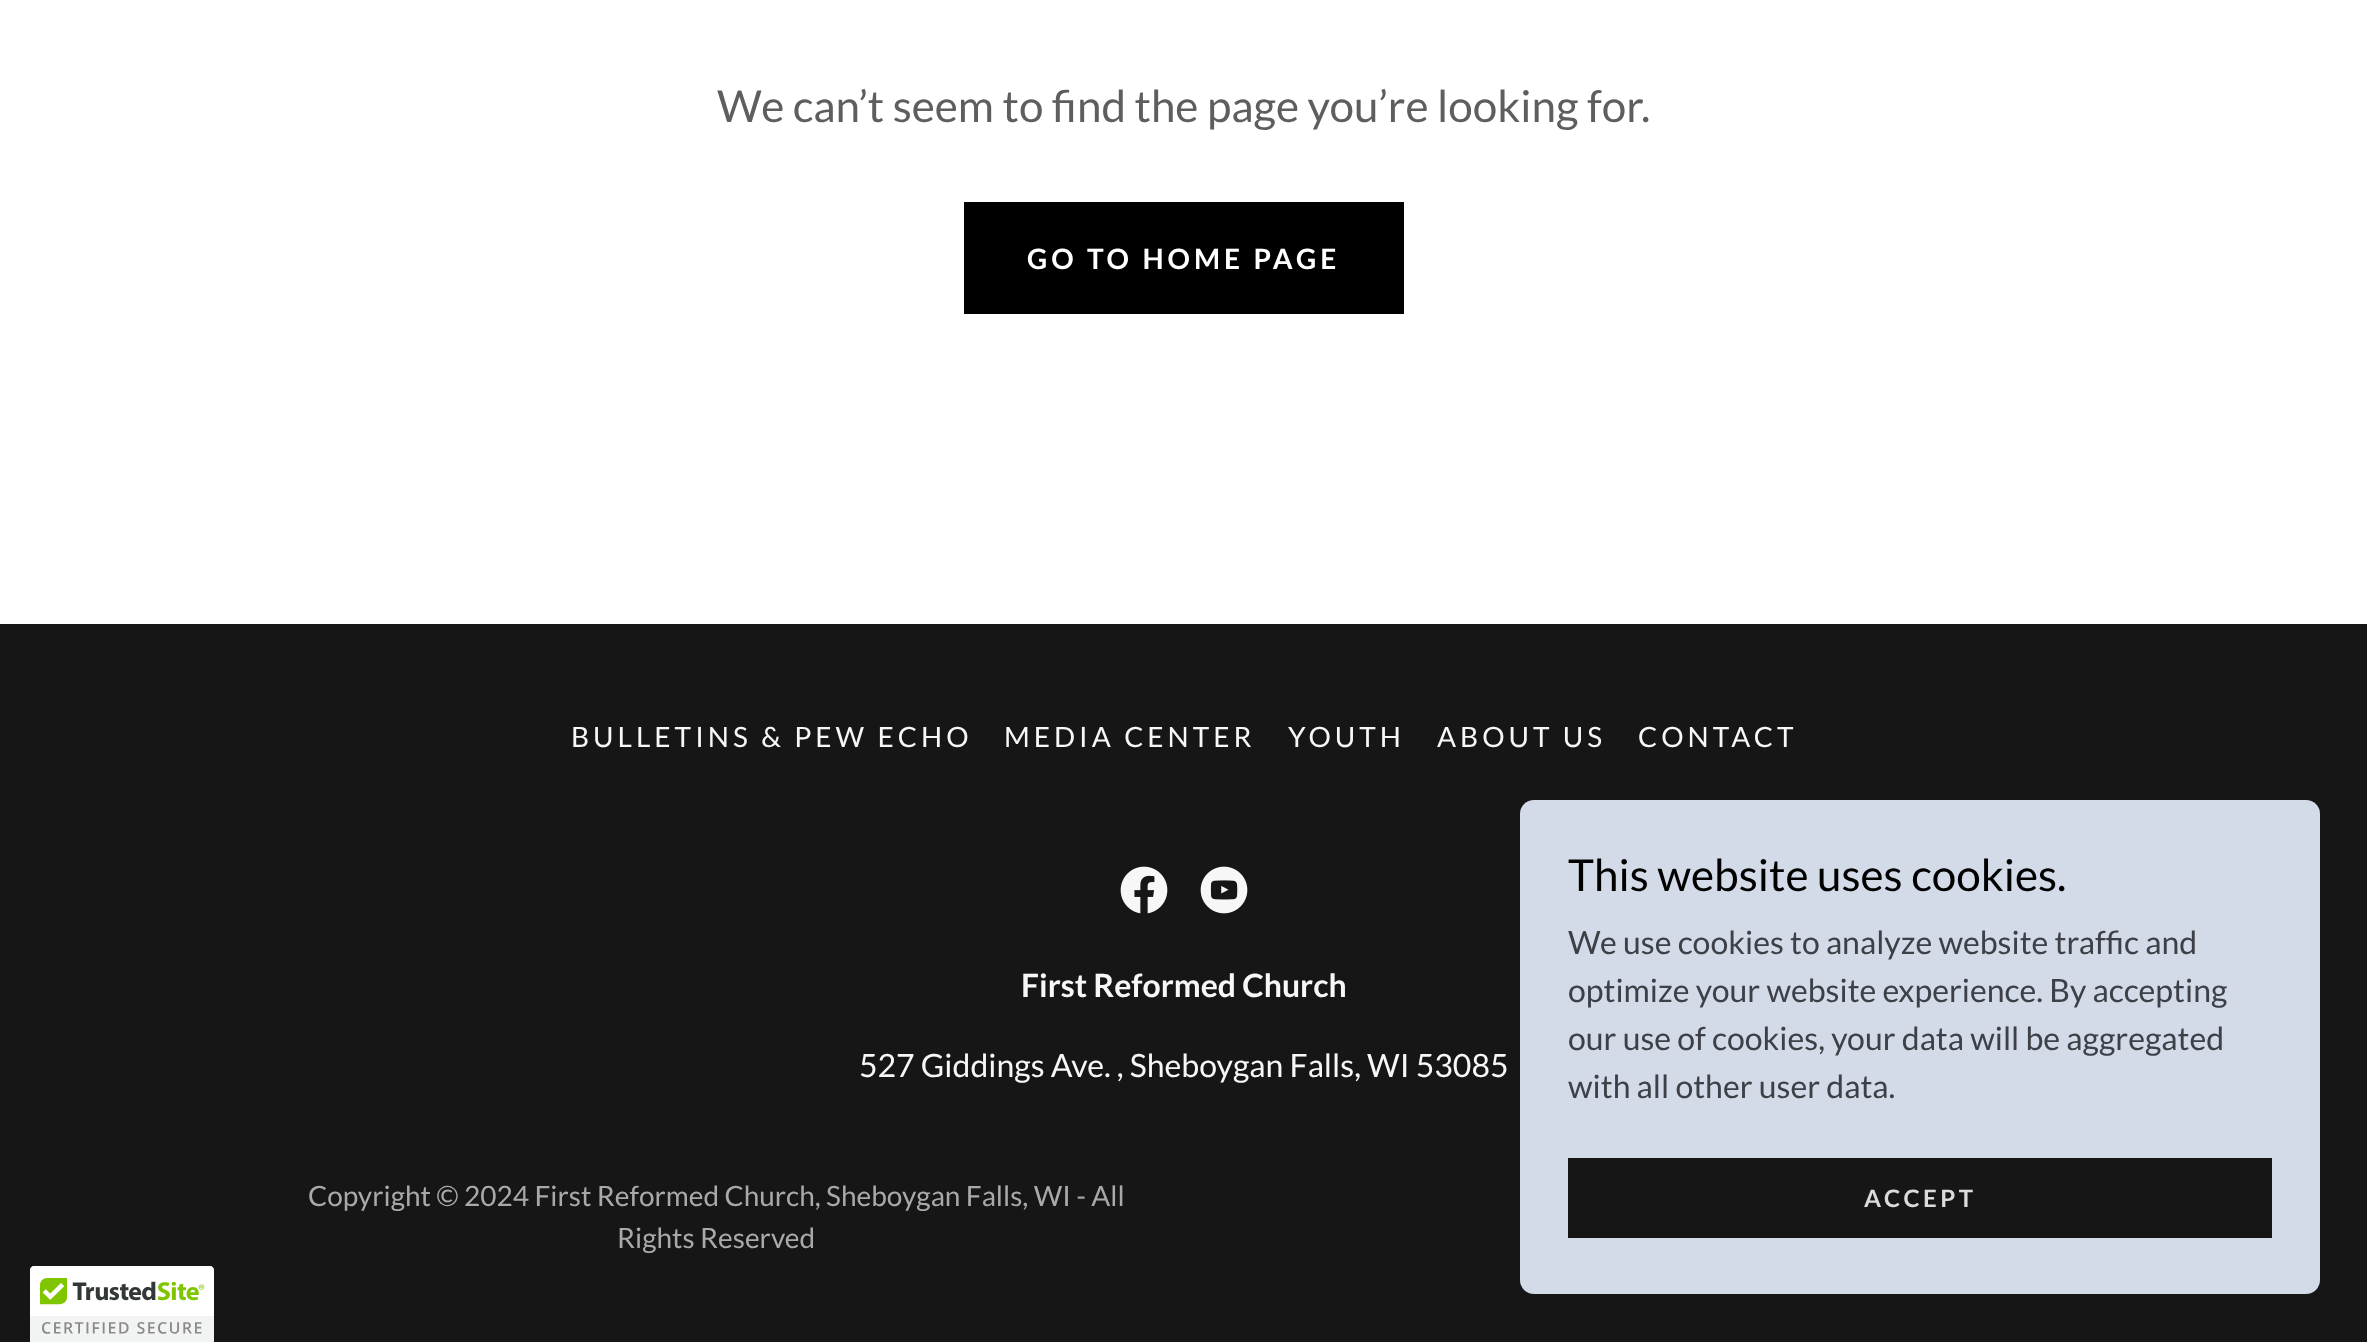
<svg xmlns="http://www.w3.org/2000/svg" width="2367" height="1342">
<rect width="100%" height="100%" fill="#161616"/>
<rect width="2367" height="624" fill="#fff"/>
<text x="717" y="122" style="font-family:Lato;font-size:44px;fill:#5e5e5e">We can’t seem to find the page you’re looking for.</text>
<rect x="964" y="202" width="440" height="112" fill="#000"/>
<text x="1027" y="269" style="font-family:Lato;font-size:28px;font-weight:bold;letter-spacing:4px;fill:#fff">GO TO HOME PAGE</text>
<text x="571" y="747" style="font-family:Lato;font-size:28px;letter-spacing:4px;fill:#f7f7f7">BULLETINS &amp; PEW ECHO</text>
<text x="1004" y="747" style="font-family:Lato;font-size:28px;letter-spacing:4px;fill:#f7f7f7">MEDIA CENTER</text>
<text x="1288" y="747" style="font-family:Lato;font-size:28px;letter-spacing:4px;fill:#f7f7f7">YOUTH</text>
<text x="1437" y="747" style="font-family:Lato;font-size:28px;letter-spacing:4px;fill:#f7f7f7">ABOUT US</text>
<text x="1638" y="747" style="font-family:Lato;font-size:28px;letter-spacing:4px;fill:#f7f7f7">CONTACT</text>
<image x="1120" y="866" width="48" height="48" href="media/1.png"/>
<image x="1200" y="866" width="48" height="48" href="media/2.png"/>
<text x="1021" y="997" style="font-family:Lato;font-size:32px;font-weight:bold;fill:#f7f7f7">First Reformed Church</text>
<text x="859" y="1077" style="font-family:Lato;font-size:32px;fill:#f7f7f7">527 Giddings Ave. , Sheboygan Falls, WI 53085</text>
<text x="308" y="1206" style="font-family:Lato;font-size:28px;fill:#a9a9a9">Copyright © 2024 First Reformed Church, Sheboygan Falls, WI - All</text>
<text x="617" y="1248" style="font-family:Lato;font-size:28px;fill:#a9a9a9">Rights Reserved</text>
<rect x="1520" y="800" width="800" height="494" rx="14" fill="#d3dae8"/>
<text x="1568" y="891" style="font-family:Lato;font-size:44px;fill:#000">This website uses cookies.</text>
<text x="1568" y="954" style="font-family:Lato;font-size:32px;fill:#3d4046">We use cookies to analyze website traffic and</text>
<text x="1568" y="1002" style="font-family:Lato;font-size:32px;fill:#3d4046">optimize your website experience. By accepting</text>
<text x="1568" y="1050" style="font-family:Lato;font-size:32px;fill:#3d4046">our use of cookies, your data will be aggregated</text>
<text x="1568" y="1098" style="font-family:Lato;font-size:32px;fill:#3d4046">with all other user data.</text>
<rect x="1568" y="1158" width="704" height="80" fill="#161616"/>
<text x="1864" y="1207" style="font-family:Lato;font-size:24px;font-weight:bold;letter-spacing:3.5px;fill:#dbdbdb">ACCEPT</text>
<path d="M34 1266h176c2 0 4 2 4 4v72h-184v-72c0-2 2-4 4-4z" fill="#fff"/>
<image x="30" y="1266" width="184" height="76" href="media/3.png"/>
</svg>
